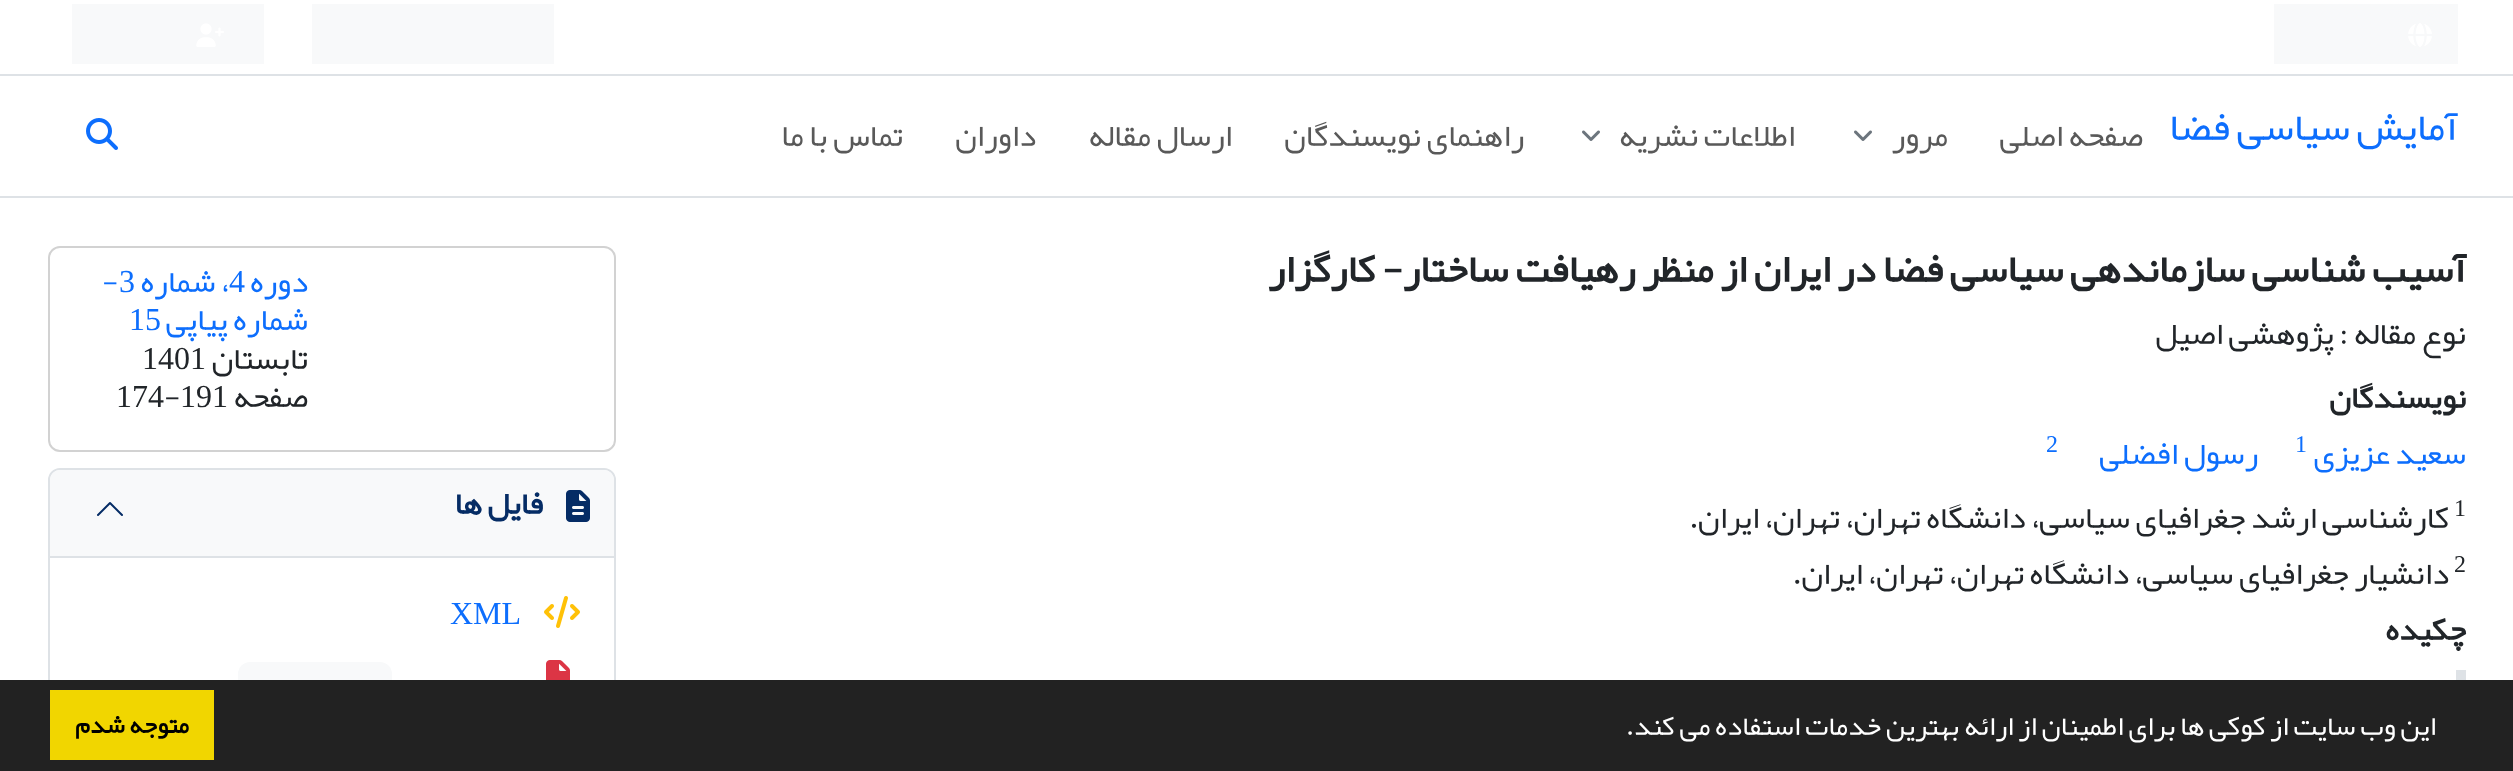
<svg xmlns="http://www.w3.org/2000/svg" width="2513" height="771">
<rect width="100%" height="100%" fill="#fff"/>
<rect x="2274" y="4" width="184" height="60" fill="#f8f9fa"/>
<image x="2408" y="23" width="24" height="24" href="media/1.png"/>
<rect x="312" y="4" width="242" height="60" fill="#f8f9fa"/>
<rect x="72" y="4" width="192" height="60" fill="#f8f9fa"/>
<image x="196" y="23" width="28" height="24" href="media/2.png"/>
<rect y="74" width="2513" height="2" fill="#dee2e6"/>
<rect y="196" width="2513" height="2" fill="#dee2e6"/>
<text x="2458" y="140" style="font-family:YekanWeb;font-size:40px;direction:rtl;fill:#0d6efd">آمایش سیاسی فضا</text>
<text x="2143" y="146" style="font-family:YekanWeb;font-size:32px;direction:rtl;fill:#595959">صفحه اصلی</text>
<text x="1948" y="146" style="font-family:YekanWeb;font-size:32px;direction:rtl;fill:#595959">مرور</text>
<image x="1854" y="130" width="18" height="11" href="media/3.png"/>
<text x="1795" y="146" style="font-family:YekanWeb;font-size:32px;direction:rtl;fill:#595959">اطلاعات نشریه</text>
<image x="1582" y="130" width="18" height="11" href="media/3.png"/>
<text x="1524" y="146" style="font-family:YekanWeb;font-size:32px;direction:rtl;fill:#595959">راهنمای نویسندگان</text>
<text x="1232" y="146" style="font-family:YekanWeb;font-size:32px;direction:rtl;fill:#595959">ارسال مقاله</text>
<text x="1036" y="146" style="font-family:YekanWeb;font-size:32px;direction:rtl;fill:#595959">داوران</text>
<text x="903" y="146" style="font-family:YekanWeb;font-size:32px;direction:rtl;fill:#595959">تماس با ما</text>
<image x="86" y="118" width="32" height="32" href="media/4.png"/>
<text x="2466" y="282" style="font-family:YekanWeb;font-size:40px;font-weight:bold;direction:rtl;fill:#212529">آسیب شناسی سازماندهی سیاسی فضا در ایران از منظر رهیافت ساختار- کارگزار</text>
<text x="2466" y="344" style="font-family:YekanWeb;font-size:32px;direction:rtl;fill:#212529">نوع مقاله : پژوهشی اصیل</text>
<text x="2466" y="408" style="font-family:YekanWeb;font-size:32px;font-weight:bold;direction:rtl;fill:#212529">نویسندگان</text>
<text x="2466" y="464" style="font-family:YekanWeb;font-size:32px;direction:rtl;fill:#0d6efd">سعید</text>
<text x="2390" y="464" style="font-family:YekanWeb;font-size:32px;direction:rtl;fill:#0d6efd">عزیزی</text>
<text x="2295" y="452" style="font-family:Liberation Serif;font-size:24px;fill:#0d6efd">1</text>
<text x="2258" y="464" style="font-family:YekanWeb;font-size:32px;direction:rtl;fill:#0d6efd">رسول</text>
<text x="2178" y="464" style="font-family:YekanWeb;font-size:32px;direction:rtl;fill:#0d6efd">افضلی</text>
<text x="2046" y="452" style="font-family:Liberation Serif;font-size:24px;fill:#0d6efd">2</text>
<text x="2454" y="516" style="font-family:Liberation Serif;font-size:24px;fill:#212529">1</text>
<text x="2449" y="528" style="font-family:YekanWeb;font-size:32px;direction:rtl;fill:#212529">کارشناسی ارشد جغرافیای سیاسی، دانشگاه تهران، تهران، ایران.</text>
<text x="2454" y="572" style="font-family:Liberation Serif;font-size:24px;fill:#212529">2</text>
<text x="2449" y="584" style="font-family:YekanWeb;font-size:32px;direction:rtl;fill:#212529">دانشیار جغرافیای سیاسی، دانشگاه تهران، تهران، ایران.</text>
<text x="2466" y="640" style="font-family:YekanWeb;font-size:32px;font-weight:bold;direction:rtl;fill:#212529">چکیده</text>
<rect x="2456" y="670" width="10" height="10" fill="#dee2e6"/>
<rect x="49" y="247" width="566" height="204" rx="11" fill="none" stroke="#d2d2d2" stroke-width="2"/>
<text x="308" y="292" style="font-family:YekanWeb;font-size:32px;direction:rtl;fill:#0d6efd">دوره</text>
<text x="229" y="292" style="font-family:Liberation Serif;font-size:32px;fill:#0d6efd">4</text>
<text x="229" y="292" style="font-family:YekanWeb;font-size:32px;direction:rtl;fill:#0d6efd">، شماره</text>
<text x="119" y="292" style="font-family:Liberation Serif;font-size:32px;fill:#0d6efd">3</text>
<text x="102" y="292" style="font-family:YekanWeb;font-size:32px;fill:#0d6efd">-</text>
<text x="308" y="330" style="font-family:YekanWeb;font-size:32px;direction:rtl;fill:#0d6efd">شماره پیاپی</text>
<text x="129" y="330" style="font-family:Liberation Serif;font-size:32px;fill:#0d6efd">15</text>
<text x="308" y="369" style="font-family:YekanWeb;font-size:32px;direction:rtl;fill:#212529">تابستان</text>
<text x="142" y="369" style="font-family:Liberation Serif;font-size:32px;fill:#212529">1401</text>
<text x="308" y="407" style="font-family:YekanWeb;font-size:32px;direction:rtl;fill:#212529">صفحه</text>
<text x="180" y="407" style="font-family:Liberation Serif;font-size:32px;fill:#212529">191</text>
<text x="164" y="407" style="font-family:YekanWeb;font-size:32px;fill:#212529">-</text>
<text x="116" y="407" style="font-family:Liberation Serif;font-size:32px;fill:#212529">174</text>
<rect x="49" y="469" width="566" height="282" rx="11" fill="none" stroke="#dee2e6" stroke-width="2"/>
<path d="M60 470h544c5.5 0 10 4.5 10 10v78h-564v-78c0-5.5 4.5-10 10-10z" fill="#f8f9fa"/>
<rect x="50" y="556" width="564" height="2" fill="#dee2e6"/>
<image x="566" y="490" width="24" height="32" href="media/5.png"/>
<text x="543" y="514" style="font-family:YekanWeb;font-size:32px;font-weight:bold;direction:rtl;fill:#052c65">فایل ها</text>
<path d="M122 515l-12-12l-12 12" fill="none" stroke="#052c65" stroke-width="2" stroke-linecap="round" stroke-linejoin="round"/>
<image x="544" y="596" width="36" height="32" href="media/6.png"/>
<text x="450" y="624" style="font-family:Liberation Serif;font-size:32px;fill:#0d6efd">XML</text>
<image x="546" y="660" width="24" height="20" href="media/7.png"/>
<rect x="238" y="662" width="154" height="40" rx="12" fill="#f8f9fa"/>
<rect y="680" width="2513" height="91" fill="#222"/>
<text x="2436" y="735" style="font-family:YekanWeb;font-size:28px;direction:rtl;fill:#fff">این وب سایت از کوکی ها برای اطمینان از ارائه بهترین خدمات استفاده می کند.</text>
<rect x="50" y="690" width="164" height="70" fill="#f1d600"/>
<text x="189" y="733" style="font-family:YekanWeb;font-size:25px;font-weight:bold;direction:rtl;fill:#000">متوجه شدم</text>
</svg>
